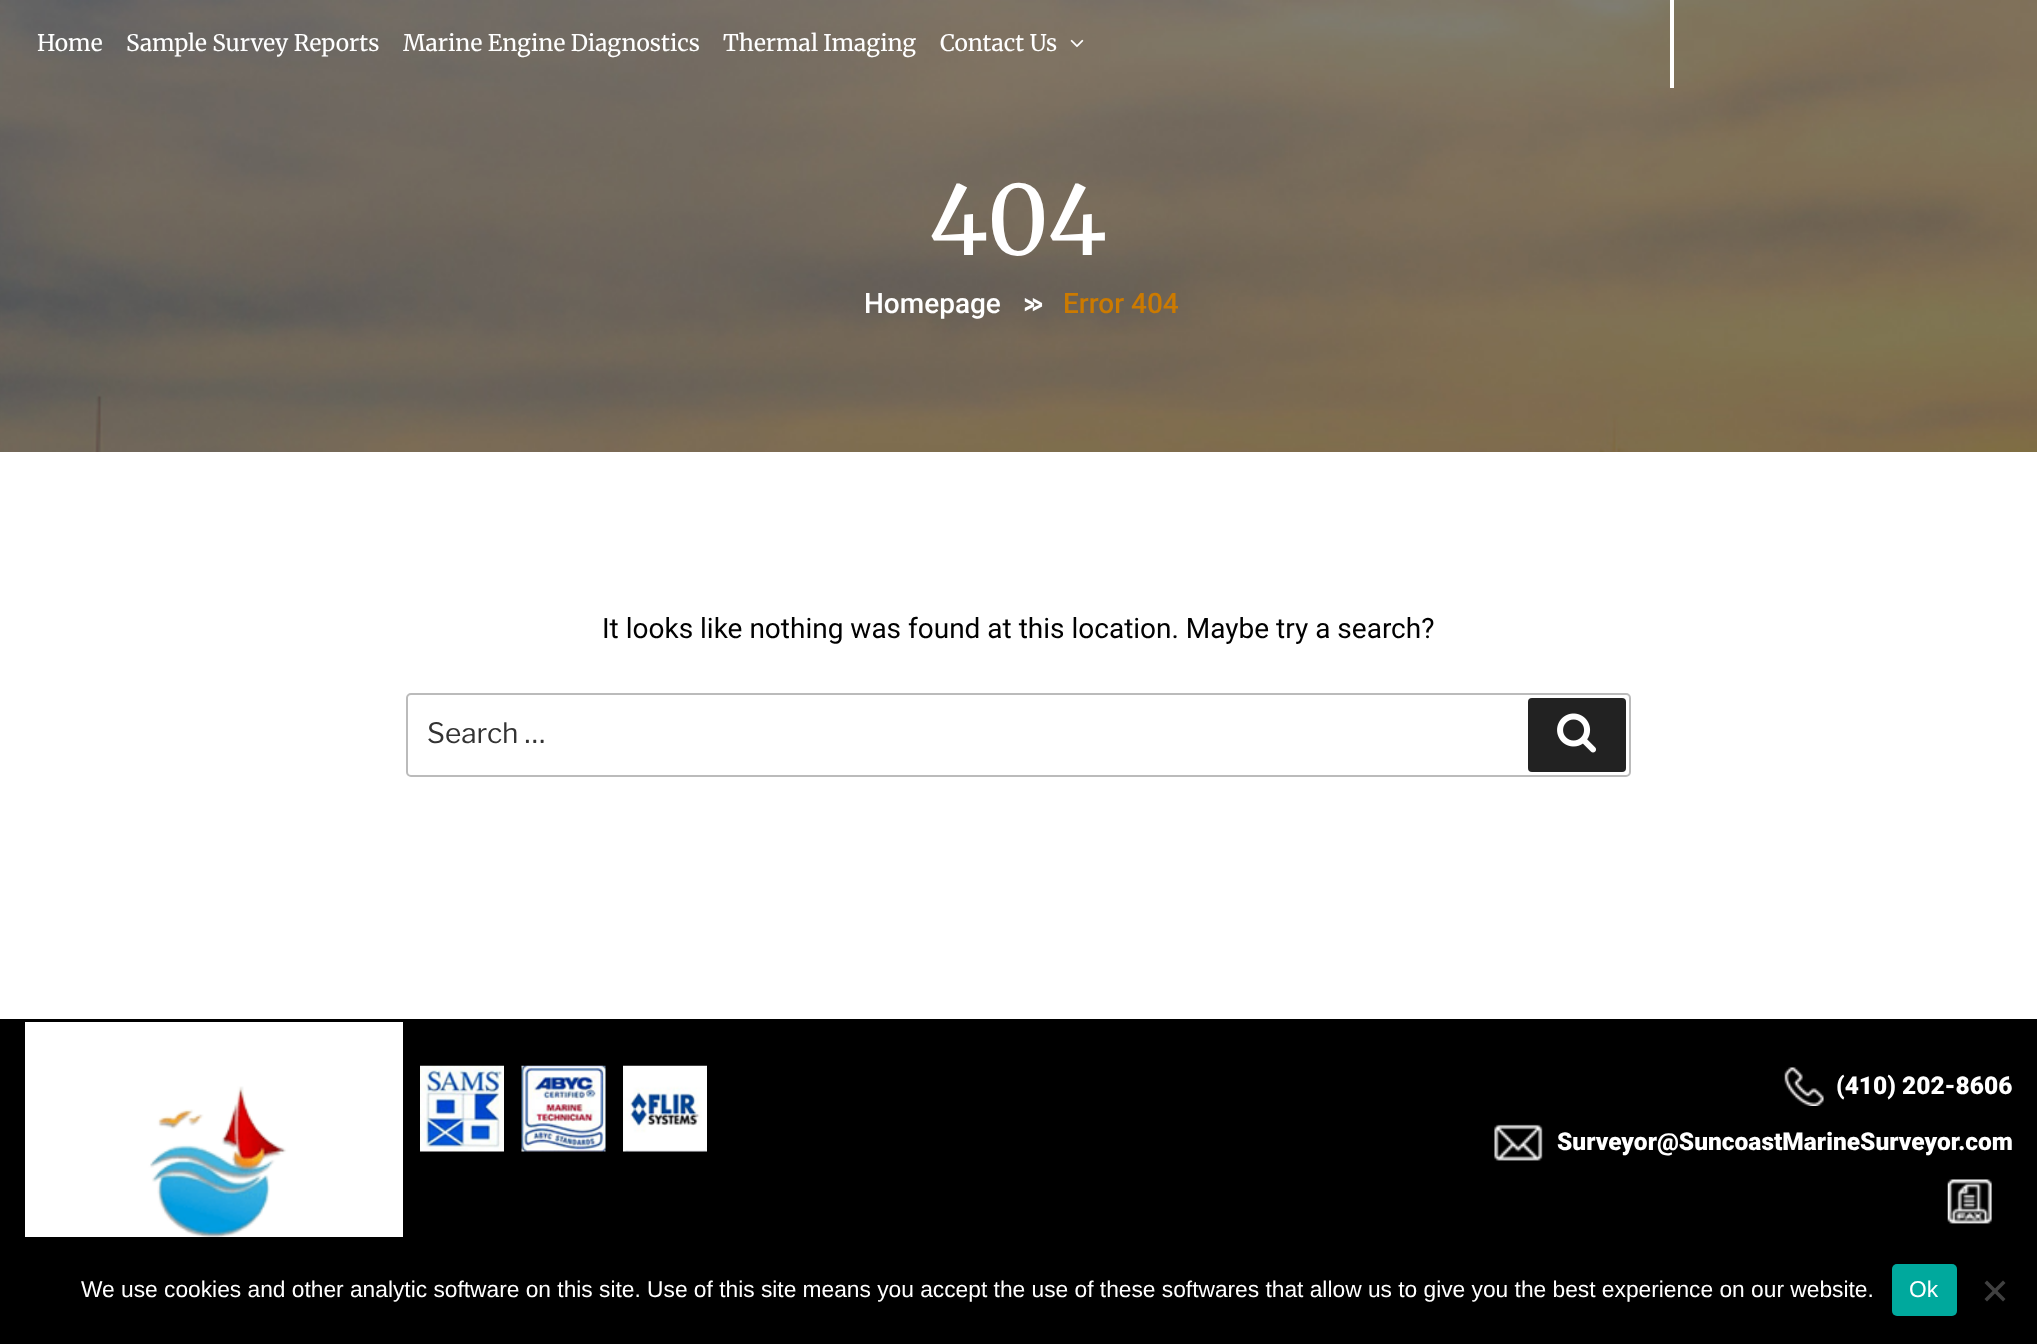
<svg xmlns="http://www.w3.org/2000/svg" width="2037" height="1344">
<rect width="100%" height="100%" fill="#fff"/>
<image x="0" y="0" width="2037" height="452" href="media/2.png"/>
<rect x="1670" width="4" height="88" fill="#fff"/>
<text x="37" y="51" style="font-family:Merriweather;font-size:22.75px;fill:#fff">Home</text>
<text x="126" y="51" style="font-family:Merriweather;font-size:22.75px;fill:#fff">Sample Survey Reports</text>
<text x="403" y="51" style="font-family:Merriweather;font-size:22.75px;fill:#fff">Marine Engine Diagnostics</text>
<text x="723" y="51" style="font-family:Merriweather;font-size:22.75px;fill:#fff">Thermal Imaging</text>
<text x="940" y="51" style="font-family:Merriweather;font-size:22.75px;fill:#fff">Contact Us</text>
<image x="1070" y="39" width="14" height="9" href="media/1.png"/>
<text x="929" y="255" style="font-family:Merriweather;font-size:96px;fill:#fff">404</text>
<text x="864" y="313" style="font-family:Roboto;font-size:28px;font-weight:500;fill:#fff">Homepage</text>
<text x="1023" y="318" style="font-family:Oswald;font-size:32px;letter-spacing:-4px;fill:#fff">&gt;&gt;</text>
<text x="1063" y="313" style="font-family:Roboto;font-size:28px;font-weight:500;fill:#cb7a01">Error 404</text>
<text x="602" y="638" style="font-family:Roboto;font-size:28px;fill:#010101">It looks like nothing was found at this location. Maybe try a search?</text>
<rect x="407" y="694" width="1223" height="82" rx="4" fill="none" stroke="#bbb" stroke-width="2"/>
<text x="427" y="743" style="font-family:Libre Franklin;font-size:28px;fill:#333">Search …</text>
<rect x="1528" y="698" width="98" height="74" rx="4" fill="#222"/>
<image x="1557" y="713" width="39" height="40" href="media/3.png"/>
<rect y="1019" width="2037" height="325" fill="#000"/>
<rect x="25" y="1022" width="378" height="215" fill="#fff"/>
<image x="36" y="1086" width="352" height="151" href="media/4.png"/>
<image x="420" y="1065" width="84" height="87" href="media/5.png"/>
<image x="521" y="1065" width="85" height="87" href="media/6.png"/>
<image x="623" y="1065" width="84" height="87" href="media/7.png"/>
<image x="1784" y="1067" width="40" height="39" href="media/8.png"/>
<text x="1836" y="1094" style="font-family:Roboto;font-size:24.5px;font-weight:900;fill:#fff">(410) 202-8606</text>
<image x="1494" y="1124" width="49" height="37" href="media/9.png"/>
<text x="1557" y="1150" style="font-family:Roboto;font-size:24.5px;font-weight:900;fill:#fff">Surveyor@SuncoastMarineSurveyor.com</text>
<image x="1947" y="1179" width="45" height="45" href="media/10.png"/>
<text x="81" y="1297" style="font-family:Liberation Sans;font-size:22.75px;fill:#fff">We use cookies and other analytic software on this site. Use of this site means you accept the use of these softwares that allow us to give you the best experience on our website.</text>
<rect x="1892" y="1264" width="65" height="52" rx="5" fill="#00a99d"/>
<text x="1909" y="1297" style="font-family:Liberation Sans;font-size:22.75px;fill:#fff">Ok</text>
<path d="M2003 1280.5l2.5 2.5l-18.5 18.5l-2.5-2.5z" fill="#404040"/>
<path d="M1984.5 1283l2.5-2.5l18.5 18.5l-2.5 2.5z" fill="#404040"/>
</svg>
